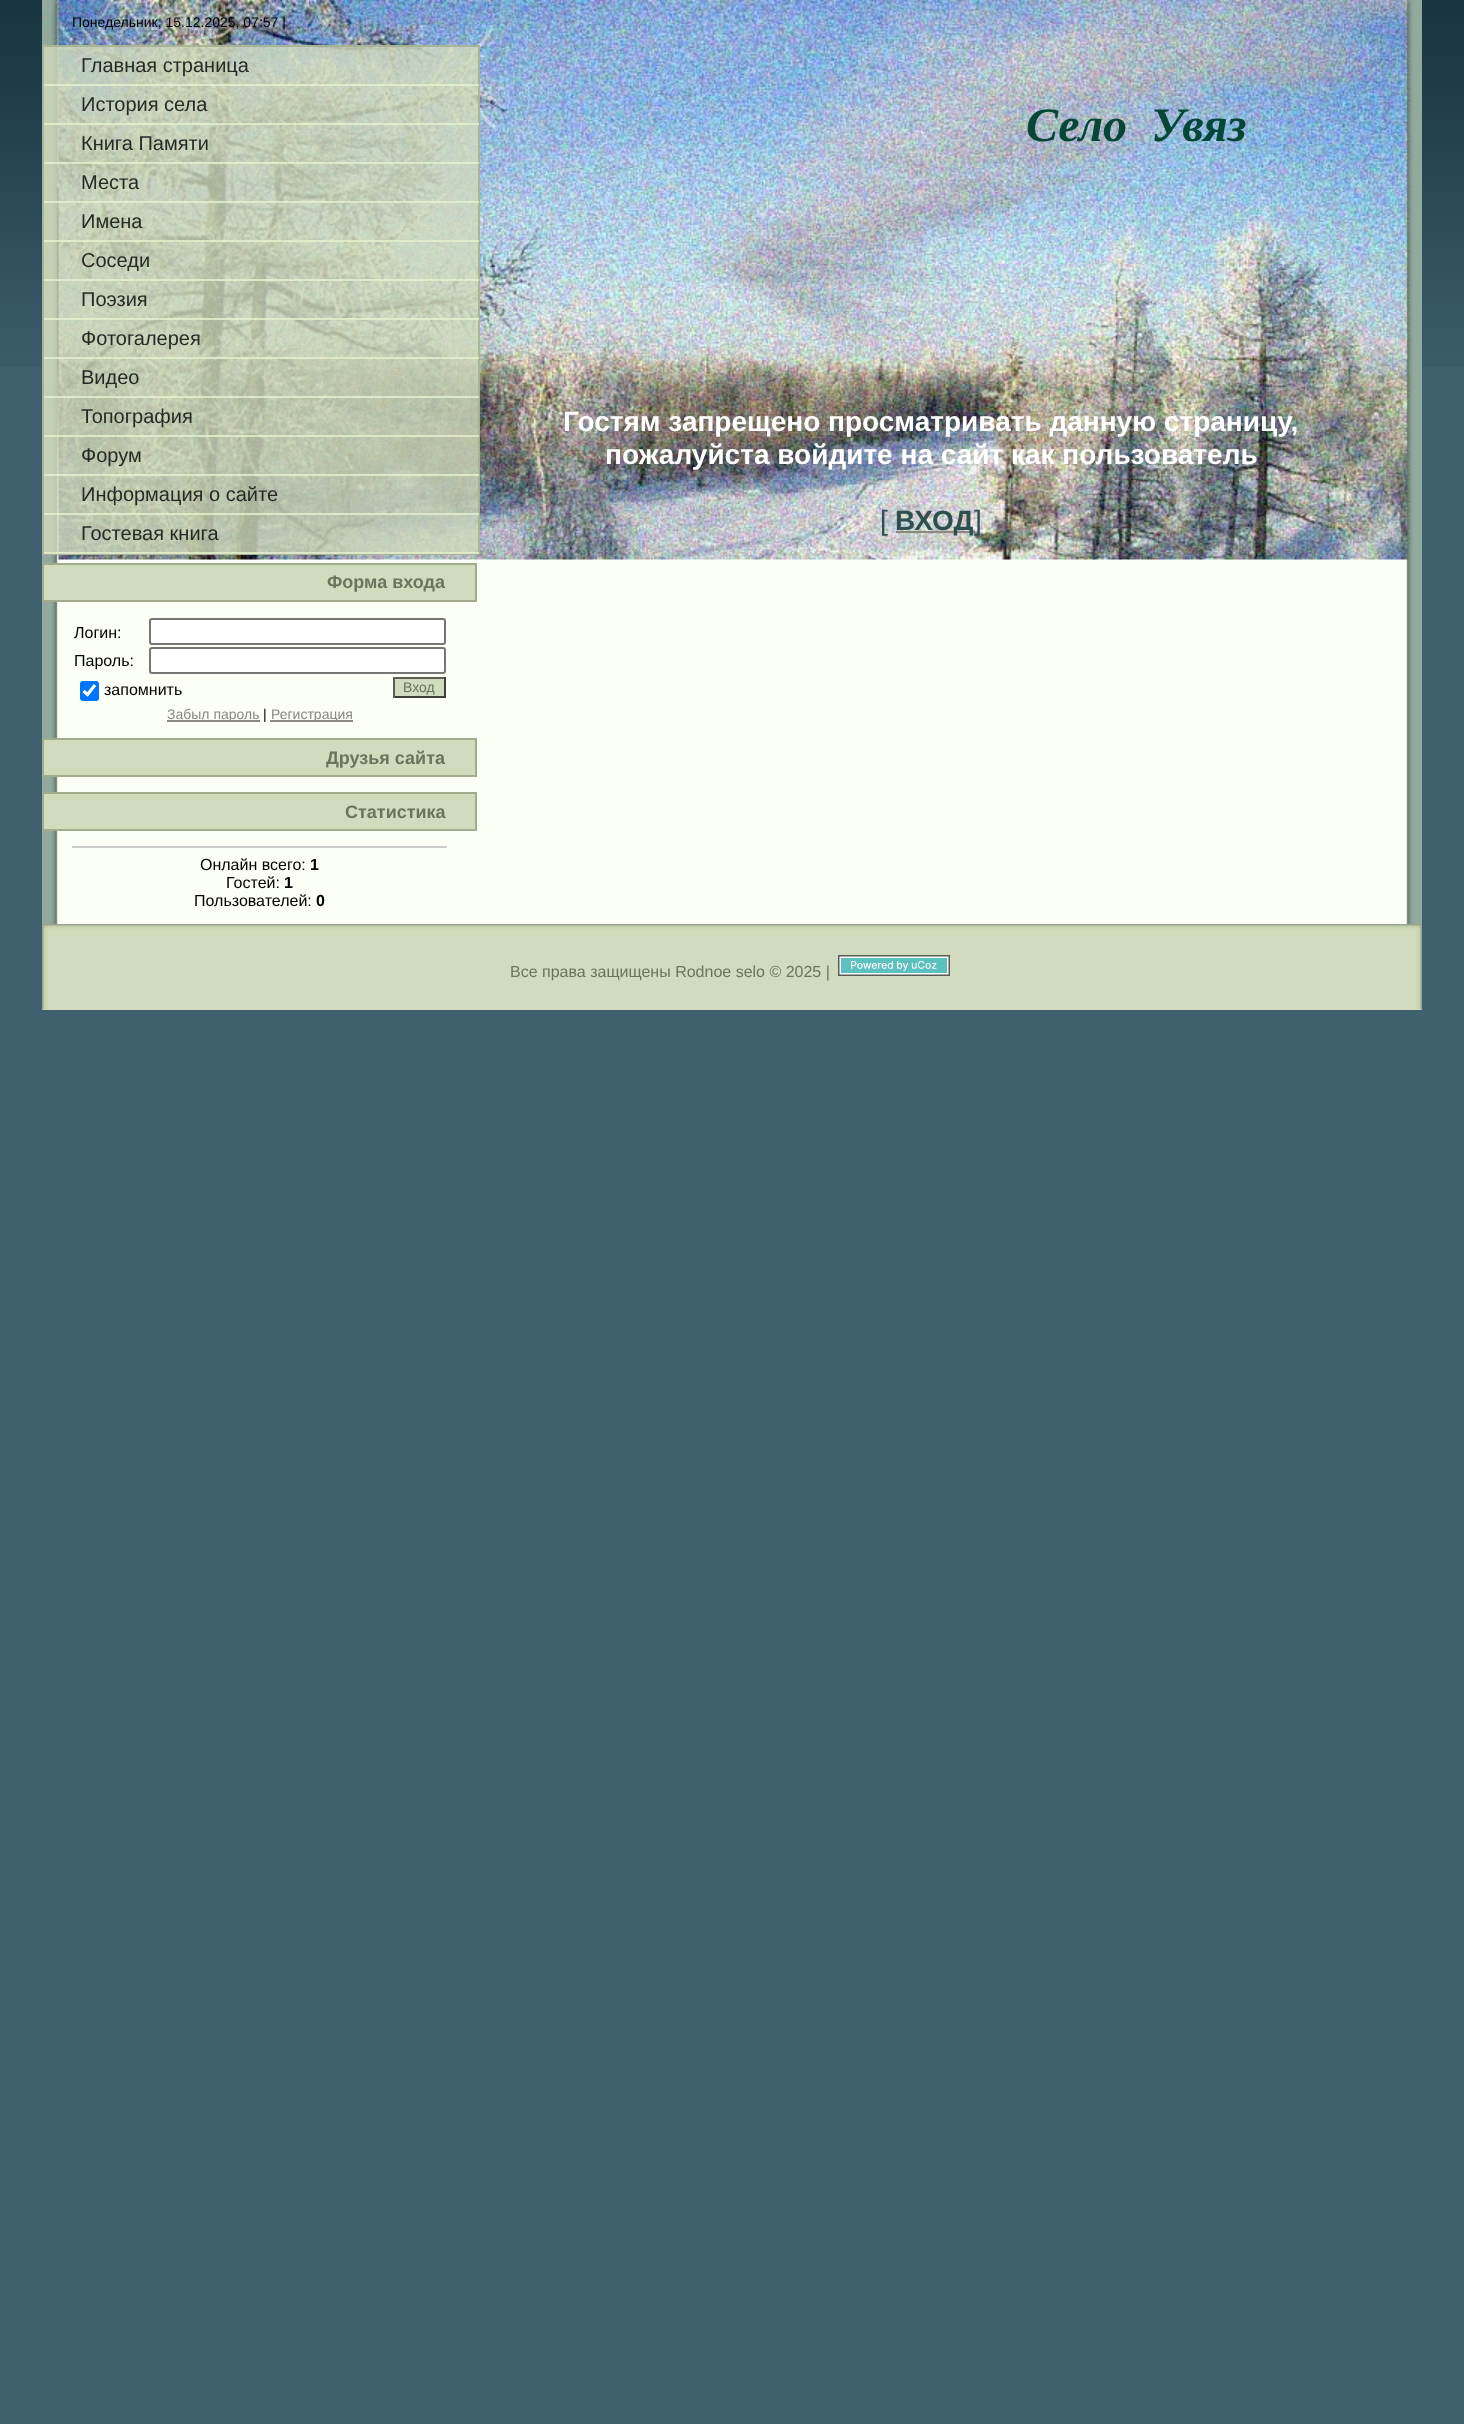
<svg xmlns="http://www.w3.org/2000/svg" width="1464" height="2424">
<rect width="100%" height="100%" fill="#3e606f"/>
<image x="0" y="0" width="1464" height="367" href="media/1.png"/>
<image x="42" y="0" width="1380" height="924" href="media/2.png"/>
<image x="42" y="0" width="1369" height="560" href="media/3.png"/>
<text x="72" y="27" style="font-family:Liberation Sans;font-size:14px;fill:#000">Понедельник, 15.12.2025, 07:57 |</text>
<rect x="42" y="45" width="438" height="510" fill="#d1dbbdcc"/>
<rect x="43" y="46" width="436" height="508" fill="none" stroke="#a1ac8dcc" stroke-width="2"/>
<rect x="44" y="84" width="435" height="2" fill="#e6f1d0cc"/>
<text x="81" y="72" style="font-family:Liberation Sans;font-size:20px;fill:#272925">Главная страница</text>
<rect x="44" y="123" width="435" height="2" fill="#e6f1d0cc"/>
<text x="81" y="111" style="font-family:Liberation Sans;font-size:20px;fill:#272925">История села</text>
<rect x="44" y="162" width="435" height="2" fill="#e6f1d0cc"/>
<text x="81" y="150" style="font-family:Liberation Sans;font-size:20px;fill:#272925">Книга Памяти</text>
<rect x="44" y="201" width="435" height="2" fill="#e6f1d0cc"/>
<text x="81" y="189" style="font-family:Liberation Sans;font-size:20px;fill:#272925">Места</text>
<rect x="44" y="240" width="435" height="2" fill="#e6f1d0cc"/>
<text x="81" y="228" style="font-family:Liberation Sans;font-size:20px;fill:#272925">Имена</text>
<rect x="44" y="279" width="435" height="2" fill="#e6f1d0cc"/>
<text x="81" y="267" style="font-family:Liberation Sans;font-size:20px;fill:#272925">Соседи</text>
<rect x="44" y="318" width="435" height="2" fill="#e6f1d0cc"/>
<text x="81" y="306" style="font-family:Liberation Sans;font-size:20px;fill:#272925">Поэзия</text>
<rect x="44" y="357" width="435" height="2" fill="#e6f1d0cc"/>
<text x="81" y="345" style="font-family:Liberation Sans;font-size:20px;fill:#272925">Фотогалерея</text>
<rect x="44" y="396" width="435" height="2" fill="#e6f1d0cc"/>
<text x="81" y="384" style="font-family:Liberation Sans;font-size:20px;fill:#272925">Видео</text>
<rect x="44" y="435" width="435" height="2" fill="#e6f1d0cc"/>
<text x="81" y="423" style="font-family:Liberation Sans;font-size:20px;fill:#272925">Топография</text>
<rect x="44" y="474" width="435" height="2" fill="#e6f1d0cc"/>
<text x="81" y="462" style="font-family:Liberation Sans;font-size:20px;fill:#272925">Форум</text>
<rect x="44" y="513" width="435" height="2" fill="#e6f1d0cc"/>
<text x="81" y="501" style="font-family:Liberation Sans;font-size:20px;fill:#272925">Информация о сайте</text>
<rect x="44" y="552" width="435" height="2" fill="#e6f1d0cc"/>
<text x="81" y="540" style="font-family:Liberation Sans;font-size:20px;fill:#272925">Гостевая книга</text>
<rect x="43" y="564" width="433" height="37" fill="#d1dbbd" stroke="#a1ac8d" stroke-width="2"/>
<text x="327" y="588" style="font-family:Liberation Sans;font-size:18px;font-weight:bold;fill:#6c735e">Форма входа</text>
<text x="74" y="638" style="font-family:Liberation Sans;font-size:16px;fill:#000">Логин:</text>
<rect x="150" y="619" width="295" height="25" rx="2" fill="#fff" stroke="#767676" stroke-width="2"/>
<text x="74" y="666" style="font-family:Liberation Sans;font-size:16px;fill:#000">Пароль:</text>
<rect x="150" y="648" width="295" height="25" rx="2" fill="#fff" stroke="#767676" stroke-width="2"/>
<rect x="80" y="681" width="19" height="20" rx="3" fill="#0075ff"/>
<path d="M83.5 691l4 3.5l7.5-9.5" fill="none" stroke="#fff" stroke-width="3.1"/>
<text x="104" y="695" style="font-family:Liberation Sans;font-size:16px;fill:#000">запомнить</text>
<rect x="395" y="679" width="49" height="17" fill="#d1dbbd"/>
<rect x="393" y="677" width="53" height="2" fill="#615e58"/>
<rect x="444" y="677" width="2" height="21" fill="#413f3b"/>
<rect x="393" y="696" width="53" height="2" fill="#413f3b"/>
<rect x="393" y="677" width="2" height="21" fill="#615e58"/>
<text x="403" y="692" style="font-family:Liberation Sans;font-size:14px;fill:#6c735e">Вход</text>
<rect x="167" y="720" width="93" height="2" fill="#8b8881"/>
<text x="167" y="719" style="font-family:Liberation Sans;font-size:14px;fill:#8b8881">Забыл пароль</text>
<text x="263" y="719" style="font-family:Liberation Sans;font-size:14px;fill:#000">|</text>
<rect x="270" y="720" width="83" height="2" fill="#8b8881"/>
<text x="271" y="719" style="font-family:Liberation Sans;font-size:14px;fill:#8b8881">Регистрация</text>
<rect x="43" y="739" width="433" height="37" fill="#d1dbbd" stroke="#a1ac8d" stroke-width="2"/>
<text x="326" y="764" style="font-family:Liberation Sans;font-size:18px;font-weight:bold;fill:#6c735e">Друзья сайта</text>
<rect x="43" y="793" width="433" height="37" fill="#d1dbbd" stroke="#a1ac8d" stroke-width="2"/>
<text x="345" y="818" style="font-family:Liberation Sans;font-size:18px;font-weight:bold;fill:#6c735e">Статистика</text>
<rect x="72" y="846" width="375" height="2" fill="#ccc"/>
<text x="200" y="870" style="font-family:Liberation Sans;font-size:16px;fill:#000">Онлайн всего:</text>
<text x="310" y="870" style="font-family:Liberation Sans;font-size:16px;font-weight:bold;fill:#000">1</text>
<text x="226" y="888" style="font-family:Liberation Sans;font-size:16px;fill:#000">Гостей:</text>
<text x="284" y="888" style="font-family:Liberation Sans;font-size:16px;font-weight:bold;fill:#000">1</text>
<text x="194" y="906" style="font-family:Liberation Sans;font-size:16px;fill:#000">Пользователей:</text>
<text x="316" y="906" style="font-family:Liberation Sans;font-size:16px;font-weight:bold;fill:#000">0</text>
<text x="1026" y="141" style="font-family:Liberation Serif;font-size:48px;font-weight:bold;font-style:italic;fill:#054637" xml:space="preserve">Село  Увяз</text>
<text x="563" y="431" style="font-family:Liberation Sans;font-size:28px;font-weight:bold;fill:#fff">Гостям запрещено просматривать данную страницу,</text>
<text x="605" y="464" style="font-family:Liberation Sans;font-size:28px;font-weight:bold;fill:#fff">пожалуйста войдите на сайт как пользователь</text>
<text x="880" y="530" style="font-family:Liberation Sans;font-size:28px;fill:#2f4f4f">[</text>
<rect x="896" y="531" width="78" height="2" fill="#8b8881"/>
<text x="895" y="530" style="font-family:Liberation Sans;font-size:28px;font-weight:bold;fill:#2f4f4f">ВХОД</text>
<text x="974" y="530" style="font-family:Liberation Sans;font-size:28px;fill:#2f4f4f">]</text>
<rect x="42" y="1009" width="1380" height="1" fill="#d1dbbd"/>
<image x="42" y="924" width="1380" height="86" href="media/4.png"/>
<text x="510" y="977" style="font-family:Liberation Sans;font-size:16px;fill:#6c735e">Все права защищены Rodnoe selo © 2025 |</text>
<image x="838" y="955" width="112" height="21" href="media/5.png"/>
</svg>
